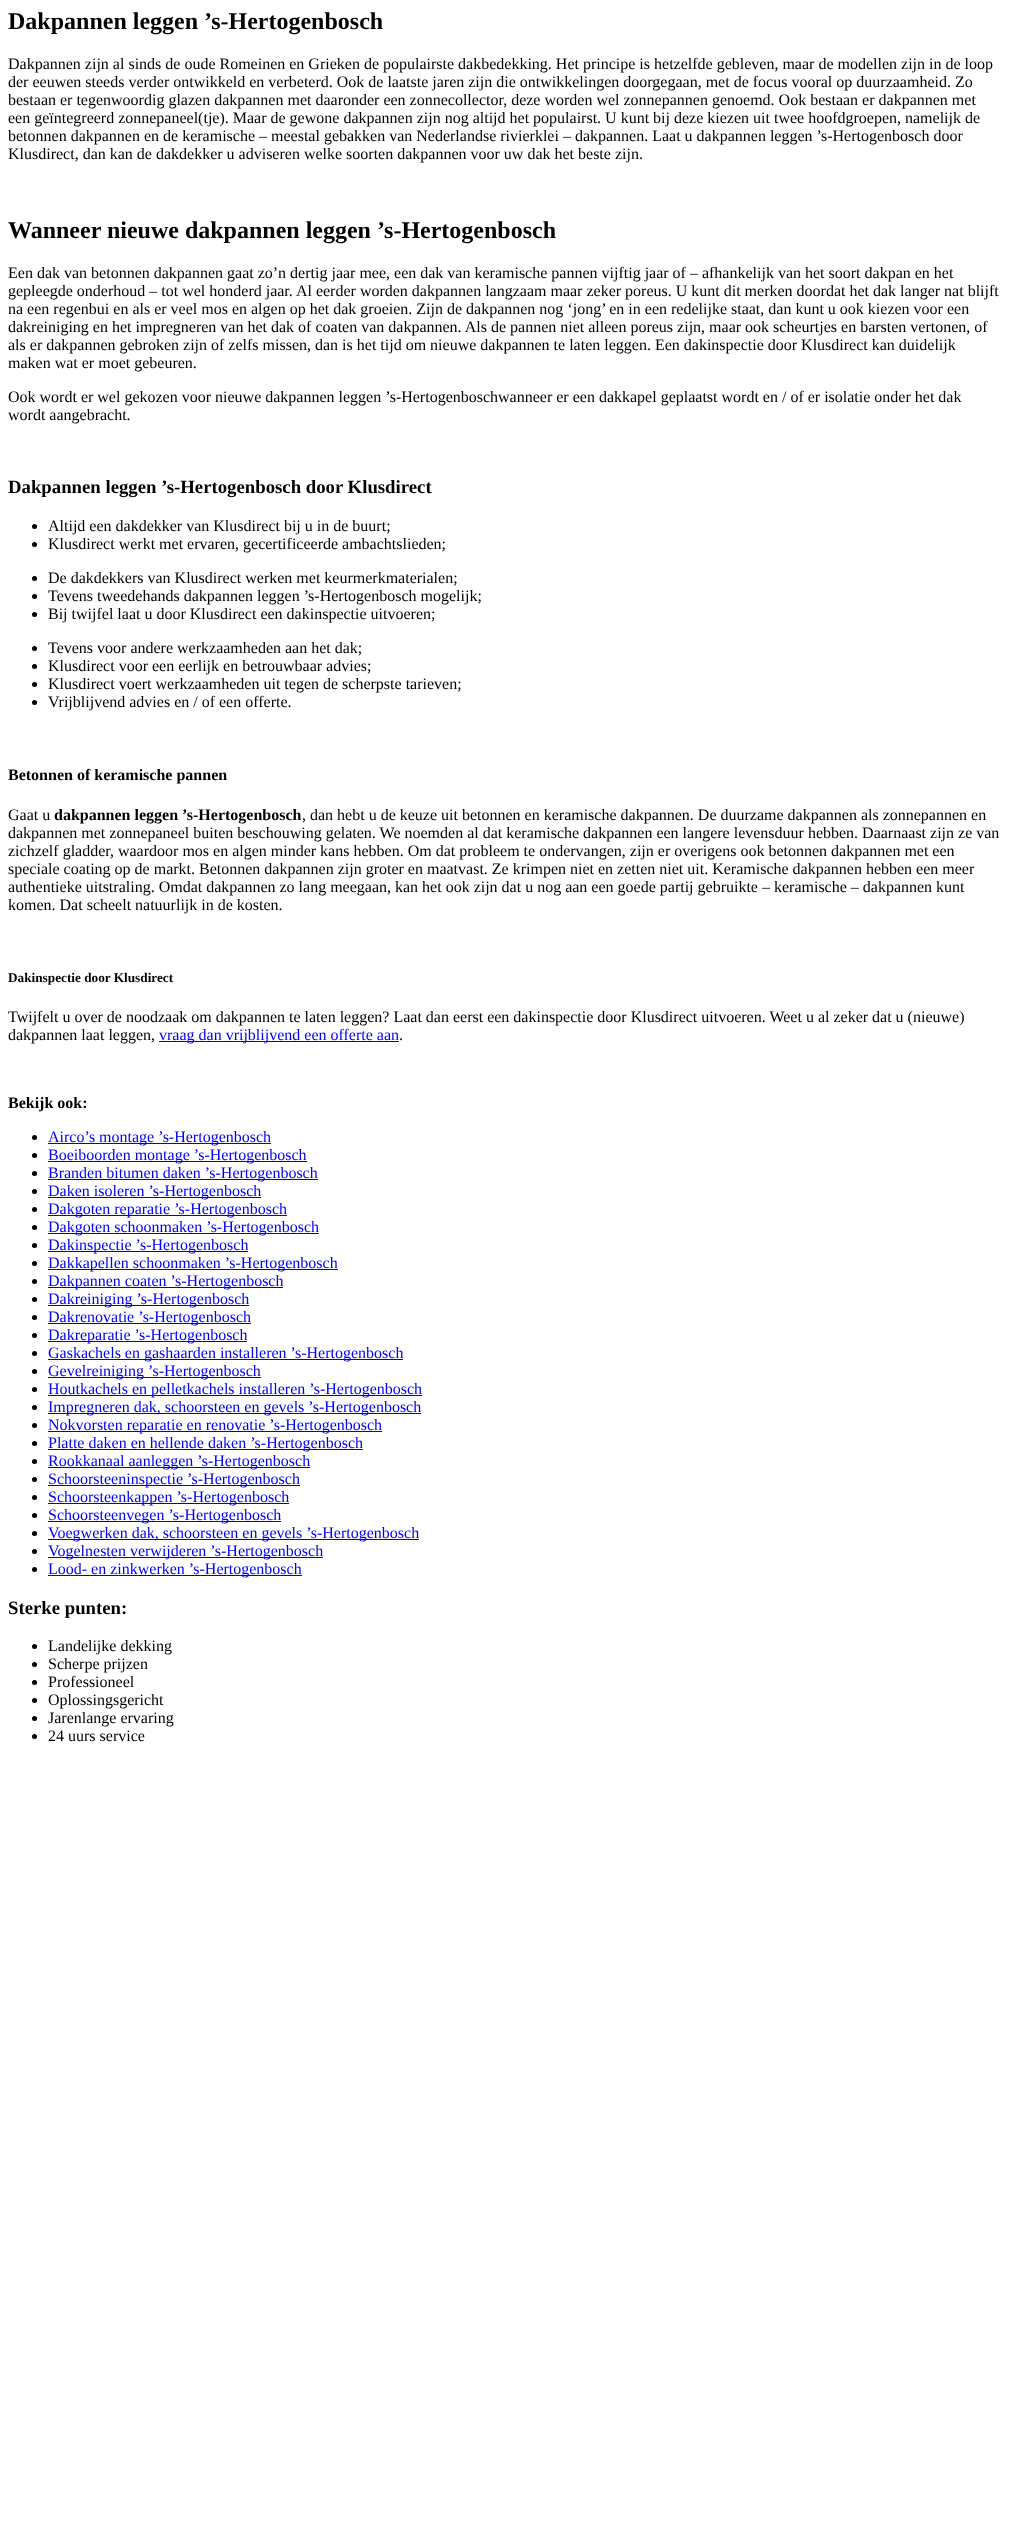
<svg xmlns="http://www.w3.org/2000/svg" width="1009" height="2529">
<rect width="100%" height="100%" fill="#fff"/>
<text x="8" y="29" style="font-family:Liberation Serif;font-size:24px;font-weight:bold;fill:#000">Dakpannen leggen ’s-Hertogenbosch</text>
<text x="8" y="69" style="font-family:Liberation Serif;font-size:16px;fill:#000">Dakpannen zijn al sinds de oude Romeinen en Grieken de populairste dakbedekking. Het principe is hetzelfde gebleven, maar de modellen zijn in de loop</text>
<text x="8" y="87" style="font-family:Liberation Serif;font-size:16px;fill:#000">der eeuwen steeds verder ontwikkeld en verbeterd. Ook de laatste jaren zijn die ontwikkelingen doorgegaan, met de focus vooral op duurzaamheid. Zo</text>
<text x="8" y="105" style="font-family:Liberation Serif;font-size:16px;fill:#000">bestaan er tegenwoordig glazen dakpannen met daaronder een zonnecollector, deze worden wel zonnepannen genoemd. Ook bestaan er dakpannen met</text>
<text x="8" y="123" style="font-family:Liberation Serif;font-size:16px;fill:#000">een geïntegreerd zonnepaneel(tje). Maar de gewone dakpannen zijn nog altijd het populairst. U kunt bij deze kiezen uit twee hoofdgroepen, namelijk de</text>
<text x="8" y="141" style="font-family:Liberation Serif;font-size:16px;fill:#000">betonnen dakpannen en de keramische – meestal gebakken van Nederlandse rivierklei – dakpannen. Laat u dakpannen leggen ’s-Hertogenbosch door</text>
<text x="8" y="159" style="font-family:Liberation Serif;font-size:16px;fill:#000">Klusdirect, dan kan de dakdekker u adviseren welke soorten dakpannen voor uw dak het beste zijn.</text>
<text x="8" y="238" style="font-family:Liberation Serif;font-size:24px;font-weight:bold;fill:#000">Wanneer nieuwe dakpannen leggen ’s-Hertogenbosch</text>
<text x="8" y="278" style="font-family:Liberation Serif;font-size:16px;fill:#000">Een dak van betonnen dakpannen gaat zo’n dertig jaar mee, een dak van keramische pannen vijftig jaar of – afhankelijk van het soort dakpan en het</text>
<text x="8" y="296" style="font-family:Liberation Serif;font-size:16px;fill:#000">gepleegde onderhoud – tot wel honderd jaar. Al eerder worden dakpannen langzaam maar zeker poreus. U kunt dit merken doordat het dak langer nat blijft</text>
<text x="8" y="314" style="font-family:Liberation Serif;font-size:16px;fill:#000">na een regenbui en als er veel mos en algen op het dak groeien. Zijn de dakpannen nog ‘jong’ en in een redelijke staat, dan kunt u ook kiezen voor een</text>
<text x="8" y="332" style="font-family:Liberation Serif;font-size:16px;fill:#000">dakreiniging en het impregneren van het dak of coaten van dakpannen. Als de pannen niet alleen poreus zijn, maar ook scheurtjes en barsten vertonen, of</text>
<text x="8" y="350" style="font-family:Liberation Serif;font-size:16px;fill:#000">als er dakpannen gebroken zijn of zelfs missen, dan is het tijd om nieuwe dakpannen te laten leggen. Een dakinspectie door Klusdirect kan duidelijk</text>
<text x="8" y="368" style="font-family:Liberation Serif;font-size:16px;fill:#000">maken wat er moet gebeuren.</text>
<text x="8" y="402" style="font-family:Liberation Serif;font-size:16px;fill:#000">Ook wordt er wel gekozen voor nieuwe dakpannen leggen ’s-Hertogenboschwanneer er een dakkapel geplaatst wordt en / of er isolatie onder het dak</text>
<text x="8" y="420" style="font-family:Liberation Serif;font-size:16px;fill:#000">wordt aangebracht.</text>
<text x="8" y="493" style="font-family:Liberation Serif;font-size:18.75px;font-weight:bold;fill:#000">Dakpannen leggen ’s-Hertogenbosch door Klusdirect</text>
<circle cx="34.5" cy="526.5" r="2.5" fill="#000"/>
<text x="48" y="531" style="font-family:Liberation Serif;font-size:16px;fill:#000">Altijd een dakdekker van Klusdirect bij u in de buurt;</text>
<circle cx="34.5" cy="544.5" r="2.5" fill="#000"/>
<text x="48" y="549" style="font-family:Liberation Serif;font-size:16px;fill:#000">Klusdirect werkt met ervaren, gecertificeerde ambachtslieden;</text>
<circle cx="34.5" cy="578.5" r="2.5" fill="#000"/>
<text x="48" y="583" style="font-family:Liberation Serif;font-size:16px;fill:#000">De dakdekkers van Klusdirect werken met keurmerkmaterialen;</text>
<circle cx="34.5" cy="596.5" r="2.5" fill="#000"/>
<text x="48" y="601" style="font-family:Liberation Serif;font-size:16px;fill:#000">Tevens tweedehands dakpannen leggen ’s-Hertogenbosch mogelijk;</text>
<circle cx="34.5" cy="614.5" r="2.5" fill="#000"/>
<text x="48" y="619" style="font-family:Liberation Serif;font-size:16px;fill:#000">Bij twijfel laat u door Klusdirect een dakinspectie uitvoeren;</text>
<circle cx="34.5" cy="648.5" r="2.5" fill="#000"/>
<text x="48" y="653" style="font-family:Liberation Serif;font-size:16px;fill:#000">Tevens voor andere werkzaamheden aan het dak;</text>
<circle cx="34.5" cy="666.5" r="2.5" fill="#000"/>
<text x="48" y="671" style="font-family:Liberation Serif;font-size:16px;fill:#000">Klusdirect voor een eerlijk en betrouwbaar advies;</text>
<circle cx="34.5" cy="684.5" r="2.5" fill="#000"/>
<text x="48" y="689" style="font-family:Liberation Serif;font-size:16px;fill:#000">Klusdirect voert werkzaamheden uit tegen de scherpste tarieven;</text>
<circle cx="34.5" cy="702.5" r="2.5" fill="#000"/>
<text x="48" y="707" style="font-family:Liberation Serif;font-size:16px;fill:#000">Vrijblijvend advies en / of een offerte.</text>
<text x="8" y="780" style="font-family:Liberation Serif;font-size:16px;font-weight:bold;fill:#000">Betonnen of keramische pannen</text>
<text x="8" y="820" style="font-family:Liberation Serif;font-size:16px;fill:#000">Gaat u</text>
<text x="54" y="820" style="font-family:Liberation Serif;font-size:16px;font-weight:bold;fill:#000">dakpannen leggen ’s-Hertogenbosch</text>
<text x="302" y="820" style="font-family:Liberation Serif;font-size:16px;fill:#000">, dan hebt u de keuze uit betonnen en keramische dakpannen. De duurzame dakpannen als zonnepannen en</text>
<text x="8" y="838" style="font-family:Liberation Serif;font-size:16px;fill:#000">dakpannen met zonnepaneel buiten beschouwing gelaten. We noemden al dat keramische dakpannen een langere levensduur hebben. Daarnaast zijn ze van</text>
<text x="8" y="856" style="font-family:Liberation Serif;font-size:16px;fill:#000">zichzelf gladder, waardoor mos en algen minder kans hebben. Om dat probleem te ondervangen, zijn er overigens ook betonnen dakpannen met een</text>
<text x="8" y="874" style="font-family:Liberation Serif;font-size:16px;fill:#000">speciale coating op de markt. Betonnen dakpannen zijn groter en maatvast. Ze krimpen niet en zetten niet uit. Keramische dakpannen hebben een meer</text>
<text x="8" y="892" style="font-family:Liberation Serif;font-size:16px;fill:#000">authentieke uitstraling. Omdat dakpannen zo lang meegaan, kan het ook zijn dat u nog aan een goede partij gebruikte – keramische – dakpannen kunt</text>
<text x="8" y="910" style="font-family:Liberation Serif;font-size:16px;fill:#000">komen. Dat scheelt natuurlijk in de kosten.</text>
<text x="8" y="982" style="font-family:Liberation Serif;font-size:13.25px;font-weight:bold;fill:#000">Dakinspectie door Klusdirect</text>
<text x="8" y="1022" style="font-family:Liberation Serif;font-size:16px;fill:#000">Twijfelt u over de noodzaak om dakpannen te laten leggen? Laat dan eerst een dakinspectie door Klusdirect uitvoeren. Weet u al zeker dat u (nieuwe)</text>
<text x="8" y="1040" style="font-family:Liberation Serif;font-size:16px;fill:#000">dakpannen laat leggen,</text>
<rect x="159" y="1041" width="240" height="1" fill="#00e"/>
<text x="159" y="1040" style="font-family:Liberation Serif;font-size:16px;fill:#00e">vraag dan vrijblijvend een offerte aan</text>
<text x="399" y="1040" style="font-family:Liberation Serif;font-size:16px;fill:#000">.</text>
<text x="8" y="1108" style="font-family:Liberation Serif;font-size:16px;font-weight:bold;fill:#000">Bekijk ook:</text>
<circle cx="34.5" cy="1137.5" r="2.5" fill="#000"/>
<rect x="48" y="1143" width="223" height="1" fill="#00e"/>
<text x="48" y="1142" style="font-family:Liberation Serif;font-size:16px;fill:#00e">Airco’s montage ’s-Hertogenbosch</text>
<circle cx="34.5" cy="1155.5" r="2.5" fill="#000"/>
<rect x="48" y="1161" width="259" height="1" fill="#00e"/>
<text x="48" y="1160" style="font-family:Liberation Serif;font-size:16px;fill:#00e">Boeiboorden montage ’s-Hertogenbosch</text>
<circle cx="34.5" cy="1173.5" r="2.5" fill="#000"/>
<rect x="48" y="1179" width="270" height="1" fill="#00e"/>
<text x="48" y="1178" style="font-family:Liberation Serif;font-size:16px;fill:#00e">Branden bitumen daken ’s-Hertogenbosch</text>
<circle cx="34.5" cy="1191.5" r="2.5" fill="#000"/>
<rect x="48" y="1197" width="213" height="1" fill="#00e"/>
<text x="48" y="1196" style="font-family:Liberation Serif;font-size:16px;fill:#00e">Daken isoleren ’s-Hertogenbosch</text>
<circle cx="34.5" cy="1209.5" r="2.5" fill="#000"/>
<rect x="48" y="1215" width="239" height="1" fill="#00e"/>
<text x="48" y="1214" style="font-family:Liberation Serif;font-size:16px;fill:#00e">Dakgoten reparatie ’s-Hertogenbosch</text>
<circle cx="34.5" cy="1227.5" r="2.5" fill="#000"/>
<rect x="48" y="1233" width="271" height="1" fill="#00e"/>
<text x="48" y="1232" style="font-family:Liberation Serif;font-size:16px;fill:#00e">Dakgoten schoonmaken ’s-Hertogenbosch</text>
<circle cx="34.5" cy="1245.5" r="2.5" fill="#000"/>
<rect x="48" y="1251" width="200" height="1" fill="#00e"/>
<text x="48" y="1250" style="font-family:Liberation Serif;font-size:16px;fill:#00e">Dakinspectie ’s-Hertogenbosch</text>
<circle cx="34.5" cy="1263.5" r="2.5" fill="#000"/>
<rect x="48" y="1269" width="290" height="1" fill="#00e"/>
<text x="48" y="1268" style="font-family:Liberation Serif;font-size:16px;fill:#00e">Dakkapellen schoonmaken ’s-Hertogenbosch</text>
<circle cx="34.5" cy="1281.5" r="2.5" fill="#000"/>
<rect x="48" y="1287" width="235" height="1" fill="#00e"/>
<text x="48" y="1286" style="font-family:Liberation Serif;font-size:16px;fill:#00e">Dakpannen coaten ’s-Hertogenbosch</text>
<circle cx="34.5" cy="1299.5" r="2.5" fill="#000"/>
<rect x="48" y="1305" width="201" height="1" fill="#00e"/>
<text x="48" y="1304" style="font-family:Liberation Serif;font-size:16px;fill:#00e">Dakreiniging ’s-Hertogenbosch</text>
<circle cx="34.5" cy="1317.5" r="2.5" fill="#000"/>
<rect x="48" y="1323" width="203" height="1" fill="#00e"/>
<text x="48" y="1322" style="font-family:Liberation Serif;font-size:16px;fill:#00e">Dakrenovatie ’s-Hertogenbosch</text>
<circle cx="34.5" cy="1335.5" r="2.5" fill="#000"/>
<rect x="48" y="1341" width="199" height="1" fill="#00e"/>
<text x="48" y="1340" style="font-family:Liberation Serif;font-size:16px;fill:#00e">Dakreparatie ’s-Hertogenbosch</text>
<circle cx="34.5" cy="1353.5" r="2.5" fill="#000"/>
<rect x="48" y="1359" width="355" height="1" fill="#00e"/>
<text x="48" y="1358" style="font-family:Liberation Serif;font-size:16px;fill:#00e">Gaskachels en gashaarden installeren ’s-Hertogenbosch</text>
<circle cx="34.5" cy="1371.5" r="2.5" fill="#000"/>
<rect x="48" y="1377" width="213" height="1" fill="#00e"/>
<text x="48" y="1376" style="font-family:Liberation Serif;font-size:16px;fill:#00e">Gevelreiniging ’s-Hertogenbosch</text>
<circle cx="34.5" cy="1389.5" r="2.5" fill="#000"/>
<rect x="48" y="1395" width="374" height="1" fill="#00e"/>
<text x="48" y="1394" style="font-family:Liberation Serif;font-size:16px;fill:#00e">Houtkachels en pelletkachels installeren ’s-Hertogenbosch</text>
<circle cx="34.5" cy="1407.5" r="2.5" fill="#000"/>
<rect x="48" y="1413" width="373" height="1" fill="#00e"/>
<text x="48" y="1412" style="font-family:Liberation Serif;font-size:16px;fill:#00e">Impregneren dak, schoorsteen en gevels ’s-Hertogenbosch</text>
<circle cx="34.5" cy="1425.5" r="2.5" fill="#000"/>
<rect x="48" y="1431" width="334" height="1" fill="#00e"/>
<text x="48" y="1430" style="font-family:Liberation Serif;font-size:16px;fill:#00e">Nokvorsten reparatie en renovatie ’s-Hertogenbosch</text>
<circle cx="34.5" cy="1443.5" r="2.5" fill="#000"/>
<rect x="48" y="1449" width="315" height="1" fill="#00e"/>
<text x="48" y="1448" style="font-family:Liberation Serif;font-size:16px;fill:#00e">Platte daken en hellende daken ’s-Hertogenbosch</text>
<circle cx="34.5" cy="1461.5" r="2.5" fill="#000"/>
<rect x="48" y="1467" width="262" height="1" fill="#00e"/>
<text x="48" y="1466" style="font-family:Liberation Serif;font-size:16px;fill:#00e">Rookkanaal aanleggen ’s-Hertogenbosch</text>
<circle cx="34.5" cy="1479.5" r="2.5" fill="#000"/>
<rect x="48" y="1485" width="252" height="1" fill="#00e"/>
<text x="48" y="1484" style="font-family:Liberation Serif;font-size:16px;fill:#00e">Schoorsteeninspectie ’s-Hertogenbosch</text>
<circle cx="34.5" cy="1497.5" r="2.5" fill="#000"/>
<rect x="48" y="1503" width="241" height="1" fill="#00e"/>
<text x="48" y="1502" style="font-family:Liberation Serif;font-size:16px;fill:#00e">Schoorsteenkappen ’s-Hertogenbosch</text>
<circle cx="34.5" cy="1515.5" r="2.5" fill="#000"/>
<rect x="48" y="1521" width="233" height="1" fill="#00e"/>
<text x="48" y="1520" style="font-family:Liberation Serif;font-size:16px;fill:#00e">Schoorsteenvegen ’s-Hertogenbosch</text>
<circle cx="34.5" cy="1533.5" r="2.5" fill="#000"/>
<rect x="48" y="1539" width="371" height="1" fill="#00e"/>
<text x="48" y="1538" style="font-family:Liberation Serif;font-size:16px;fill:#00e">Voegwerken dak, schoorsteen en gevels ’s-Hertogenbosch</text>
<circle cx="34.5" cy="1551.5" r="2.5" fill="#000"/>
<rect x="48" y="1557" width="275" height="1" fill="#00e"/>
<text x="48" y="1556" style="font-family:Liberation Serif;font-size:16px;fill:#00e">Vogelnesten verwijderen ’s-Hertogenbosch</text>
<circle cx="34.5" cy="1569.5" r="2.5" fill="#000"/>
<rect x="48" y="1575" width="254" height="1" fill="#00e"/>
<text x="48" y="1574" style="font-family:Liberation Serif;font-size:16px;fill:#00e">Lood- en zinkwerken ’s-Hertogenbosch</text>
<text x="8" y="1614" style="font-family:Liberation Serif;font-size:18.75px;font-weight:bold;fill:#000">Sterke punten:</text>
<circle cx="34.5" cy="1646.5" r="2.5" fill="#000"/>
<text x="48" y="1651" style="font-family:Liberation Serif;font-size:16px;fill:#000">Landelijke dekking</text>
<circle cx="34.5" cy="1664.5" r="2.5" fill="#000"/>
<text x="48" y="1669" style="font-family:Liberation Serif;font-size:16px;fill:#000">Scherpe prijzen</text>
<circle cx="34.5" cy="1682.5" r="2.5" fill="#000"/>
<text x="48" y="1687" style="font-family:Liberation Serif;font-size:16px;fill:#000">Professioneel</text>
<circle cx="34.5" cy="1700.5" r="2.5" fill="#000"/>
<text x="48" y="1705" style="font-family:Liberation Serif;font-size:16px;fill:#000">Oplossingsgericht</text>
<circle cx="34.5" cy="1718.5" r="2.5" fill="#000"/>
<text x="48" y="1723" style="font-family:Liberation Serif;font-size:16px;fill:#000">Jarenlange ervaring</text>
<circle cx="34.5" cy="1736.5" r="2.5" fill="#000"/>
<text x="48" y="1741" style="font-family:Liberation Serif;font-size:16px;fill:#000">24 uurs service</text>
</svg>
